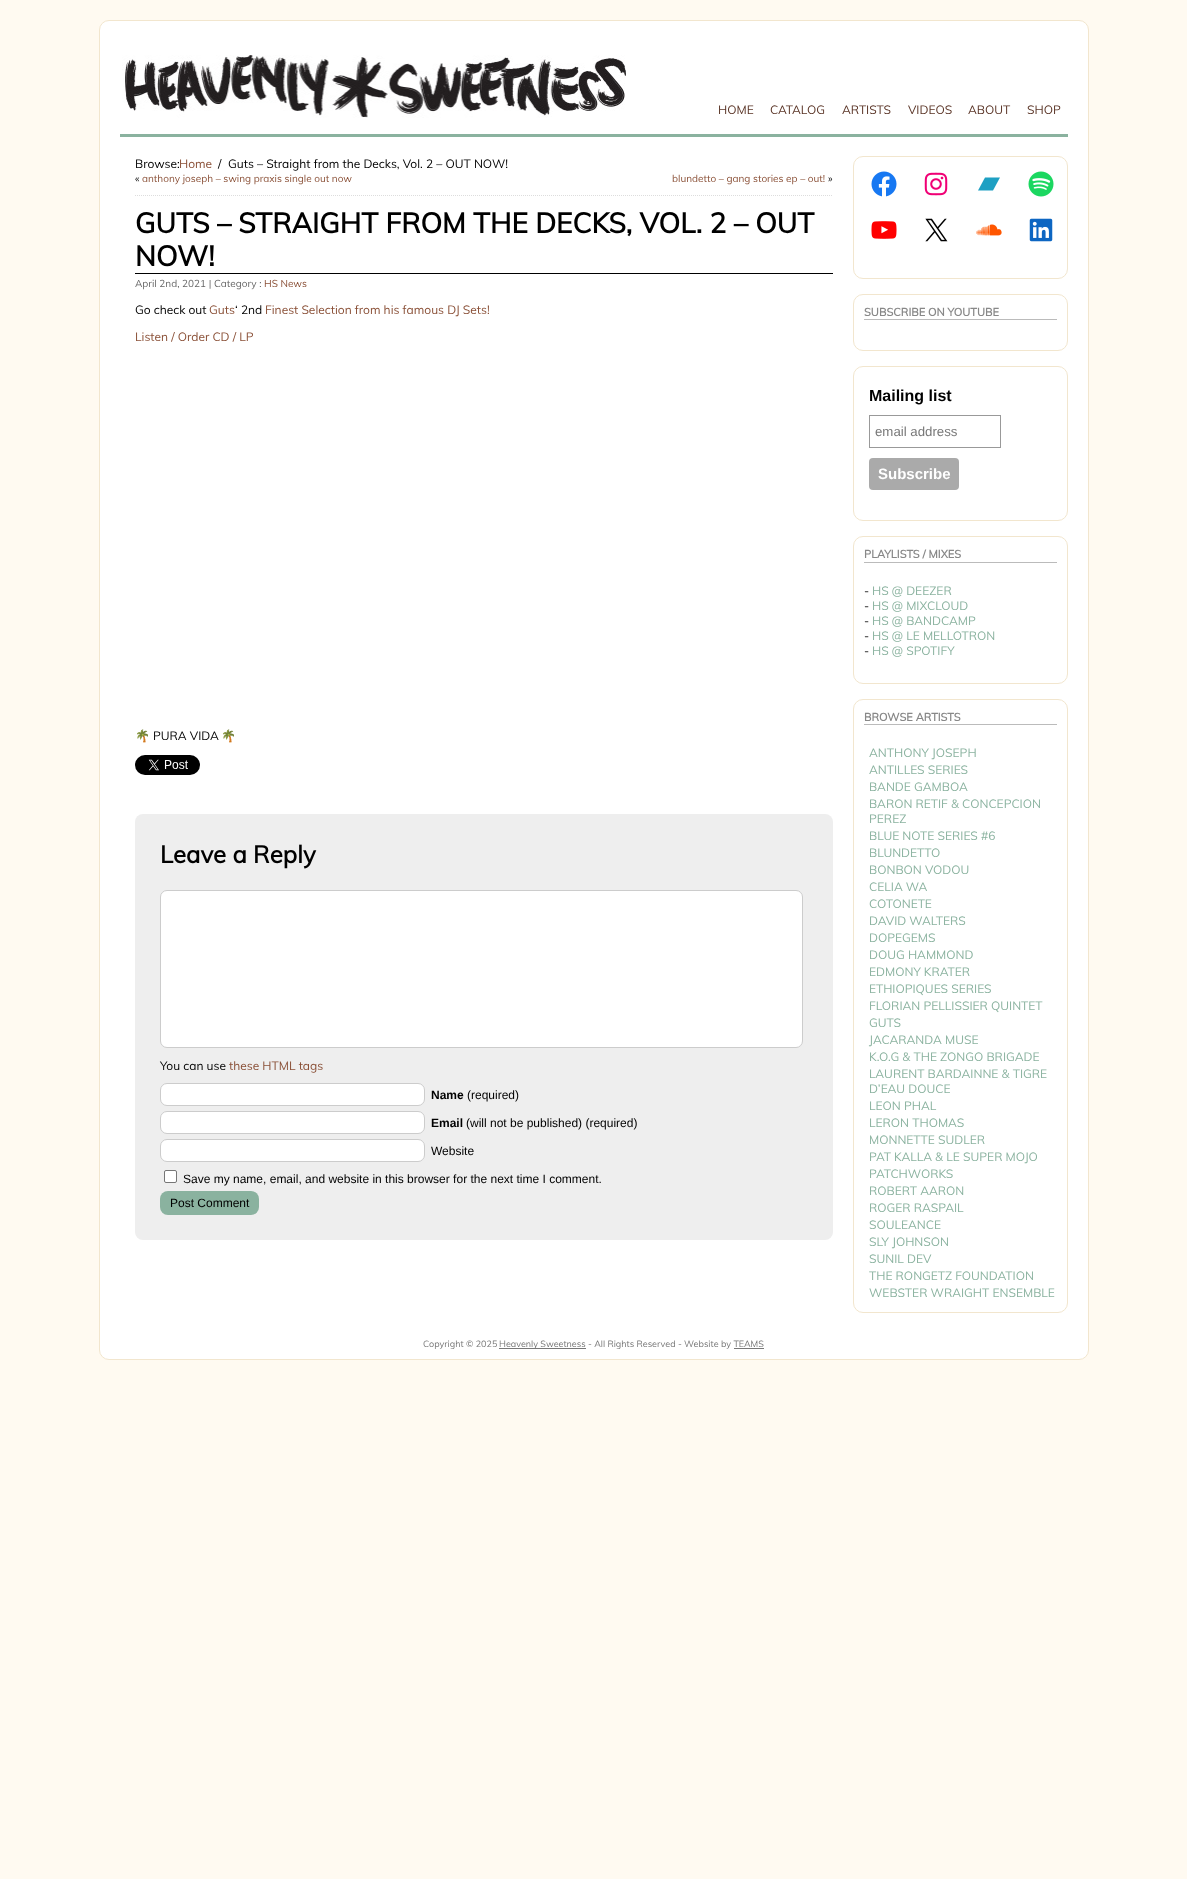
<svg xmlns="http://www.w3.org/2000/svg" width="1187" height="1879">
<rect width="100%" height="100%" fill="#fffaf1"/>
<rect x="99.5" y="20.5" width="989" height="1339" rx="9.5" fill="#fff" stroke="#f2e6ce"/>
<image x="122" y="55" width="504" height="63" href="media/1.png"/>
<text x="718" y="114" style="font-family:Muli;font-size:12px;fill:#593325">HOME</text>
<text x="770" y="114" style="font-family:Muli;font-size:12px;fill:#593325">CATALOG</text>
<text x="842" y="114" style="font-family:Muli;font-size:12px;fill:#593325">ARTISTS</text>
<text x="908" y="114" style="font-family:Muli;font-size:12px;fill:#593325">VIDEOS</text>
<text x="968" y="114" style="font-family:Muli;font-size:12px;fill:#593325">ABOUT</text>
<text x="1027" y="114" style="font-family:Muli;font-size:12px;fill:#593325">SHOP</text>
<rect x="120" y="134" width="948" height="3" fill="#8ab29f"/>
<text x="135" y="168" style="font-family:Muli;font-size:12px;fill:#000">Browse:</text>
<text x="179" y="168" style="font-family:Muli;font-size:12px;fill:#8a5037">Home</text>
<text x="218" y="168" style="font-family:Muli;font-size:12px;fill:#000">/</text>
<text x="228" y="168" style="font-family:Muli;font-size:12px;fill:#000">Guts – Straight from the Decks, Vol. 2 – OUT NOW!</text>
<path d="M135 195.5h698" fill="none" stroke="#ddd" stroke-dasharray="1 1"/>
<text x="135" y="182" style="font-family:Muli;font-size:10px;fill:#000">«</text>
<text x="142" y="182" style="font-family:Muli;font-size:10px;fill:#8a5037">anthony joseph – swing praxis single out now</text>
<text x="672" y="182" style="font-family:Muli;font-size:10px;fill:#8a5037">blundetto – gang stories ep – out!</text>
<text x="828" y="182" style="font-family:Muli;font-size:10px;fill:#000">»</text>
<rect x="135" y="273" width="698" height="1" fill="#000"/>
<text x="135" y="233" style="font-family:Muli;font-size:28px;font-weight:bold;fill:#000">GUTS – STRAIGHT FROM THE DECKS, VOL. 2 – OUT</text>
<text x="135" y="266" style="font-family:Muli;font-size:28px;font-weight:bold;fill:#000">NOW!</text>
<text x="135" y="287" style="font-family:Muli;font-size:10px;fill:#666">April 2nd, 2021 | Category :</text>
<text x="264" y="287" style="font-family:Muli;font-size:10px;fill:#8a5037">HS News</text>
<text x="135" y="314" style="font-family:Muli;font-size:12px;fill:#000">Go check out</text>
<text x="209" y="314" style="font-family:Muli;font-size:12px;fill:#8a5037">Guts</text>
<text x="235" y="314" style="font-family:Muli;font-size:12px;fill:#000">‘ 2nd</text>
<text x="265" y="314" style="font-family:Muli;font-size:12px;fill:#8a5037">Finest Selection from his famous DJ Sets!</text>
<text x="135" y="341" style="font-family:Muli;font-size:12px;fill:#8a5037">Listen / Order CD / LP</text>
<text x="135" y="740" style="font-family:Noto Color Emoji;font-size:12px;fill:#000">🌴</text>
<text x="153" y="740" style="font-family:Muli;font-size:12px;fill:#000">PURA VIDA</text>
<text x="221" y="740" style="font-family:Noto Color Emoji;font-size:12px;fill:#000">🌴</text>
<image x="135" y="755" width="65" height="20" href="media/2.png"/>
<rect x="135" y="814" width="698" height="426" rx="8" fill="#eee"/>
<text x="160" y="863" style="font-family:Muli;font-size:24px;font-weight:bold;fill:#000">Leave a Reply</text>
<rect x="160.5" y="890.5" width="642" height="157" rx="6.5" fill="#fff" stroke="#ccc"/>
<text x="160" y="1070" style="font-family:Muli;font-size:12px;fill:#000">You can use</text>
<text x="229" y="1070" style="font-family:Muli;font-size:12px;fill:#8a5037">these HTML tags</text>
<rect x="160.5" y="1083.5" width="264" height="22" rx="6.5" fill="#fff" stroke="#ccc"/>
<text x="431" y="1099" style="font-family:Liberation Sans;font-size:12px;font-weight:bold;fill:#000">Name</text>
<text x="467" y="1099" style="font-family:Liberation Sans;font-size:12px;fill:#000">(required)</text>
<rect x="160.5" y="1111.5" width="264" height="22" rx="6.5" fill="#fff" stroke="#ccc"/>
<text x="431" y="1127" style="font-family:Liberation Sans;font-size:12px;font-weight:bold;fill:#000">Email</text>
<text x="466" y="1127" style="font-family:Liberation Sans;font-size:12px;fill:#000">(will not be published) (required)</text>
<rect x="160.5" y="1139.5" width="264" height="22" rx="6.5" fill="#fff" stroke="#ccc"/>
<text x="431" y="1155" style="font-family:Liberation Sans;font-size:12px;fill:#000">Website</text>
<rect x="164.5" y="1170.5" width="12" height="12" rx="1.5" fill="#fff" stroke="#767676"/>
<text x="183" y="1183" style="font-family:Liberation Sans;font-size:12px;fill:#000">Save my name, email, and website in this browser for the next time I comment.</text>
<rect x="160" y="1191" width="99" height="24" rx="8" fill="#8ab29f"/>
<text x="170" y="1207" style="font-family:Liberation Sans;font-size:12px;fill:#000">Post Comment</text>
<rect x="853.5" y="156.5" width="214" height="122" rx="9.5" fill="none" stroke="#f2e6ce"/>
<image x="871" y="171" width="26" height="26" href="media/3.png"/>
<image x="924" y="172" width="24" height="24" href="media/4.png"/>
<path d="M993 190.5h-15l7-13h15l-7 13" fill="#1ea0c3"/>
<image x="1028" y="171" width="26" height="26" href="media/5.png"/>
<image x="871" y="221" width="26" height="18" href="media/6.png"/>
<image x="925" y="218" width="23" height="24" href="media/7.png"/>
<image x="976" y="224" width="26" height="12" href="media/8.png"/>
<image x="1029" y="218" width="24" height="24" href="media/9.png"/>
<rect x="853.5" y="294.5" width="214" height="56" rx="9.5" fill="none" stroke="#f2e6ce"/>
<rect x="864" y="319" width="193" height="1" fill="#bbb"/>
<text x="864" y="316" style="font-family:Muli;font-size:11px;font-weight:bold;fill:#888">SUBSCRIBE ON YOUTUBE</text>
<rect x="853.5" y="366.5" width="214" height="154" rx="9.5" fill="none" stroke="#f2e6ce"/>
<text x="869" y="401" style="font-family:Liberation Sans;font-size:16px;font-weight:bold;fill:#000">Mailing list</text>
<rect x="869.5" y="415.5" width="131" height="32" fill="none" stroke="#999"/>
<text x="875" y="436" style="font-family:Liberation Sans;font-size:13.25px;fill:#777">email address</text>
<rect x="869" y="458" width="90" height="32" rx="4" fill="#aaa"/>
<text x="878" y="479" style="font-family:Liberation Sans;font-size:15px;font-weight:bold;fill:#fff">Subscribe</text>
<rect x="853.5" y="536.5" width="214" height="147" rx="9.5" fill="none" stroke="#f2e6ce"/>
<rect x="864" y="562" width="193" height="1" fill="#bbb"/>
<text x="864" y="558" style="font-family:Muli;font-size:11px;font-weight:bold;fill:#888">PLAYLISTS / MIXES</text>
<text x="864" y="595" style="font-family:Muli;font-size:12px;fill:#000">-</text>
<text x="872" y="595" style="font-family:Muli;font-size:12px;fill:#8ab29f">HS @ DEEZER</text>
<text x="864" y="610" style="font-family:Muli;font-size:12px;fill:#000">-</text>
<text x="872" y="610" style="font-family:Muli;font-size:12px;fill:#8ab29f">HS @ MIXCLOUD</text>
<text x="864" y="625" style="font-family:Muli;font-size:12px;fill:#000">-</text>
<text x="872" y="625" style="font-family:Muli;font-size:12px;fill:#8ab29f">HS @ BANDCAMP</text>
<text x="864" y="640" style="font-family:Muli;font-size:12px;fill:#000">-</text>
<text x="872" y="640" style="font-family:Muli;font-size:12px;fill:#8ab29f">HS @ LE MELLOTRON</text>
<text x="864" y="655" style="font-family:Muli;font-size:12px;fill:#000">-</text>
<text x="872" y="655" style="font-family:Muli;font-size:12px;fill:#8ab29f">HS @ SPOTIFY</text>
<rect x="853.5" y="699.5" width="214" height="613" rx="9.5" fill="none" stroke="#f2e6ce"/>
<rect x="864" y="724" width="193" height="1" fill="#bbb"/>
<text x="864" y="721" style="font-family:Muli;font-size:11px;font-weight:bold;fill:#888">BROWSE ARTISTS</text>
<text x="869" y="757" style="font-family:Muli;font-size:12px;fill:#8ab29f">ANTHONY JOSEPH</text>
<text x="869" y="774" style="font-family:Muli;font-size:12px;fill:#8ab29f">ANTILLES SERIES</text>
<text x="869" y="791" style="font-family:Muli;font-size:12px;fill:#8ab29f">BANDE GAMBOA</text>
<text x="869" y="808" style="font-family:Muli;font-size:12px;fill:#8ab29f">BARON RETIF &amp; CONCEPCION</text>
<text x="869" y="823" style="font-family:Muli;font-size:12px;fill:#8ab29f">PEREZ</text>
<text x="869" y="840" style="font-family:Muli;font-size:12px;fill:#8ab29f">BLUE NOTE SERIES #6</text>
<text x="869" y="857" style="font-family:Muli;font-size:12px;fill:#8ab29f">BLUNDETTO</text>
<text x="869" y="874" style="font-family:Muli;font-size:12px;fill:#8ab29f">BONBON VODOU</text>
<text x="869" y="891" style="font-family:Muli;font-size:12px;fill:#8ab29f">CELIA WA</text>
<text x="869" y="908" style="font-family:Muli;font-size:12px;fill:#8ab29f">COTONETE</text>
<text x="869" y="925" style="font-family:Muli;font-size:12px;fill:#8ab29f">DAVID WALTERS</text>
<text x="869" y="942" style="font-family:Muli;font-size:12px;fill:#8ab29f">DOPEGEMS</text>
<text x="869" y="959" style="font-family:Muli;font-size:12px;fill:#8ab29f">DOUG HAMMOND</text>
<text x="869" y="976" style="font-family:Muli;font-size:12px;fill:#8ab29f">EDMONY KRATER</text>
<text x="869" y="993" style="font-family:Muli;font-size:12px;fill:#8ab29f">ETHIOPIQUES SERIES</text>
<text x="869" y="1010" style="font-family:Muli;font-size:12px;fill:#8ab29f">FLORIAN PELLISSIER QUINTET</text>
<text x="869" y="1027" style="font-family:Muli;font-size:12px;fill:#8ab29f">GUTS</text>
<text x="869" y="1044" style="font-family:Muli;font-size:12px;fill:#8ab29f">JACARANDA MUSE</text>
<text x="869" y="1061" style="font-family:Muli;font-size:12px;fill:#8ab29f">K.O.G &amp; THE ZONGO BRIGADE</text>
<text x="869" y="1078" style="font-family:Muli;font-size:12px;fill:#8ab29f">LAURENT BARDAINNE &amp; TIGRE</text>
<text x="869" y="1093" style="font-family:Muli;font-size:12px;fill:#8ab29f">D’EAU DOUCE</text>
<text x="869" y="1110" style="font-family:Muli;font-size:12px;fill:#8ab29f">LEON PHAL</text>
<text x="869" y="1127" style="font-family:Muli;font-size:12px;fill:#8ab29f">LERON THOMAS</text>
<text x="869" y="1144" style="font-family:Muli;font-size:12px;fill:#8ab29f">MONNETTE SUDLER</text>
<text x="869" y="1161" style="font-family:Muli;font-size:12px;fill:#8ab29f">PAT KALLA &amp; LE SUPER MOJO</text>
<text x="869" y="1178" style="font-family:Muli;font-size:12px;fill:#8ab29f">PATCHWORKS</text>
<text x="869" y="1195" style="font-family:Muli;font-size:12px;fill:#8ab29f">ROBERT AARON</text>
<text x="869" y="1212" style="font-family:Muli;font-size:12px;fill:#8ab29f">ROGER RASPAIL</text>
<text x="869" y="1229" style="font-family:Muli;font-size:12px;fill:#8ab29f">SOULEANCE</text>
<text x="869" y="1246" style="font-family:Muli;font-size:12px;fill:#8ab29f">SLY JOHNSON</text>
<text x="869" y="1263" style="font-family:Muli;font-size:12px;fill:#8ab29f">SUNIL DEV</text>
<text x="869" y="1280" style="font-family:Muli;font-size:12px;fill:#8ab29f">THE RONGETZ FOUNDATION</text>
<text x="869" y="1297" style="font-family:Muli;font-size:12px;fill:#8ab29f">WEBSTER WRAIGHT ENSEMBLE</text>
<text x="423" y="1347" style="font-family:Muli;font-size:9px;fill:#777">Copyright © 2025</text>
<rect x="499" y="1348" width="87" height="1" fill="#777"/>
<text x="499" y="1347" style="font-family:Muli;font-size:9px;fill:#777">Heavenly Sweetness - All Rights Reserved - Website by TEAMS</text>
<rect x="734" y="1348" width="30" height="1" fill="#777"/>
</svg>
